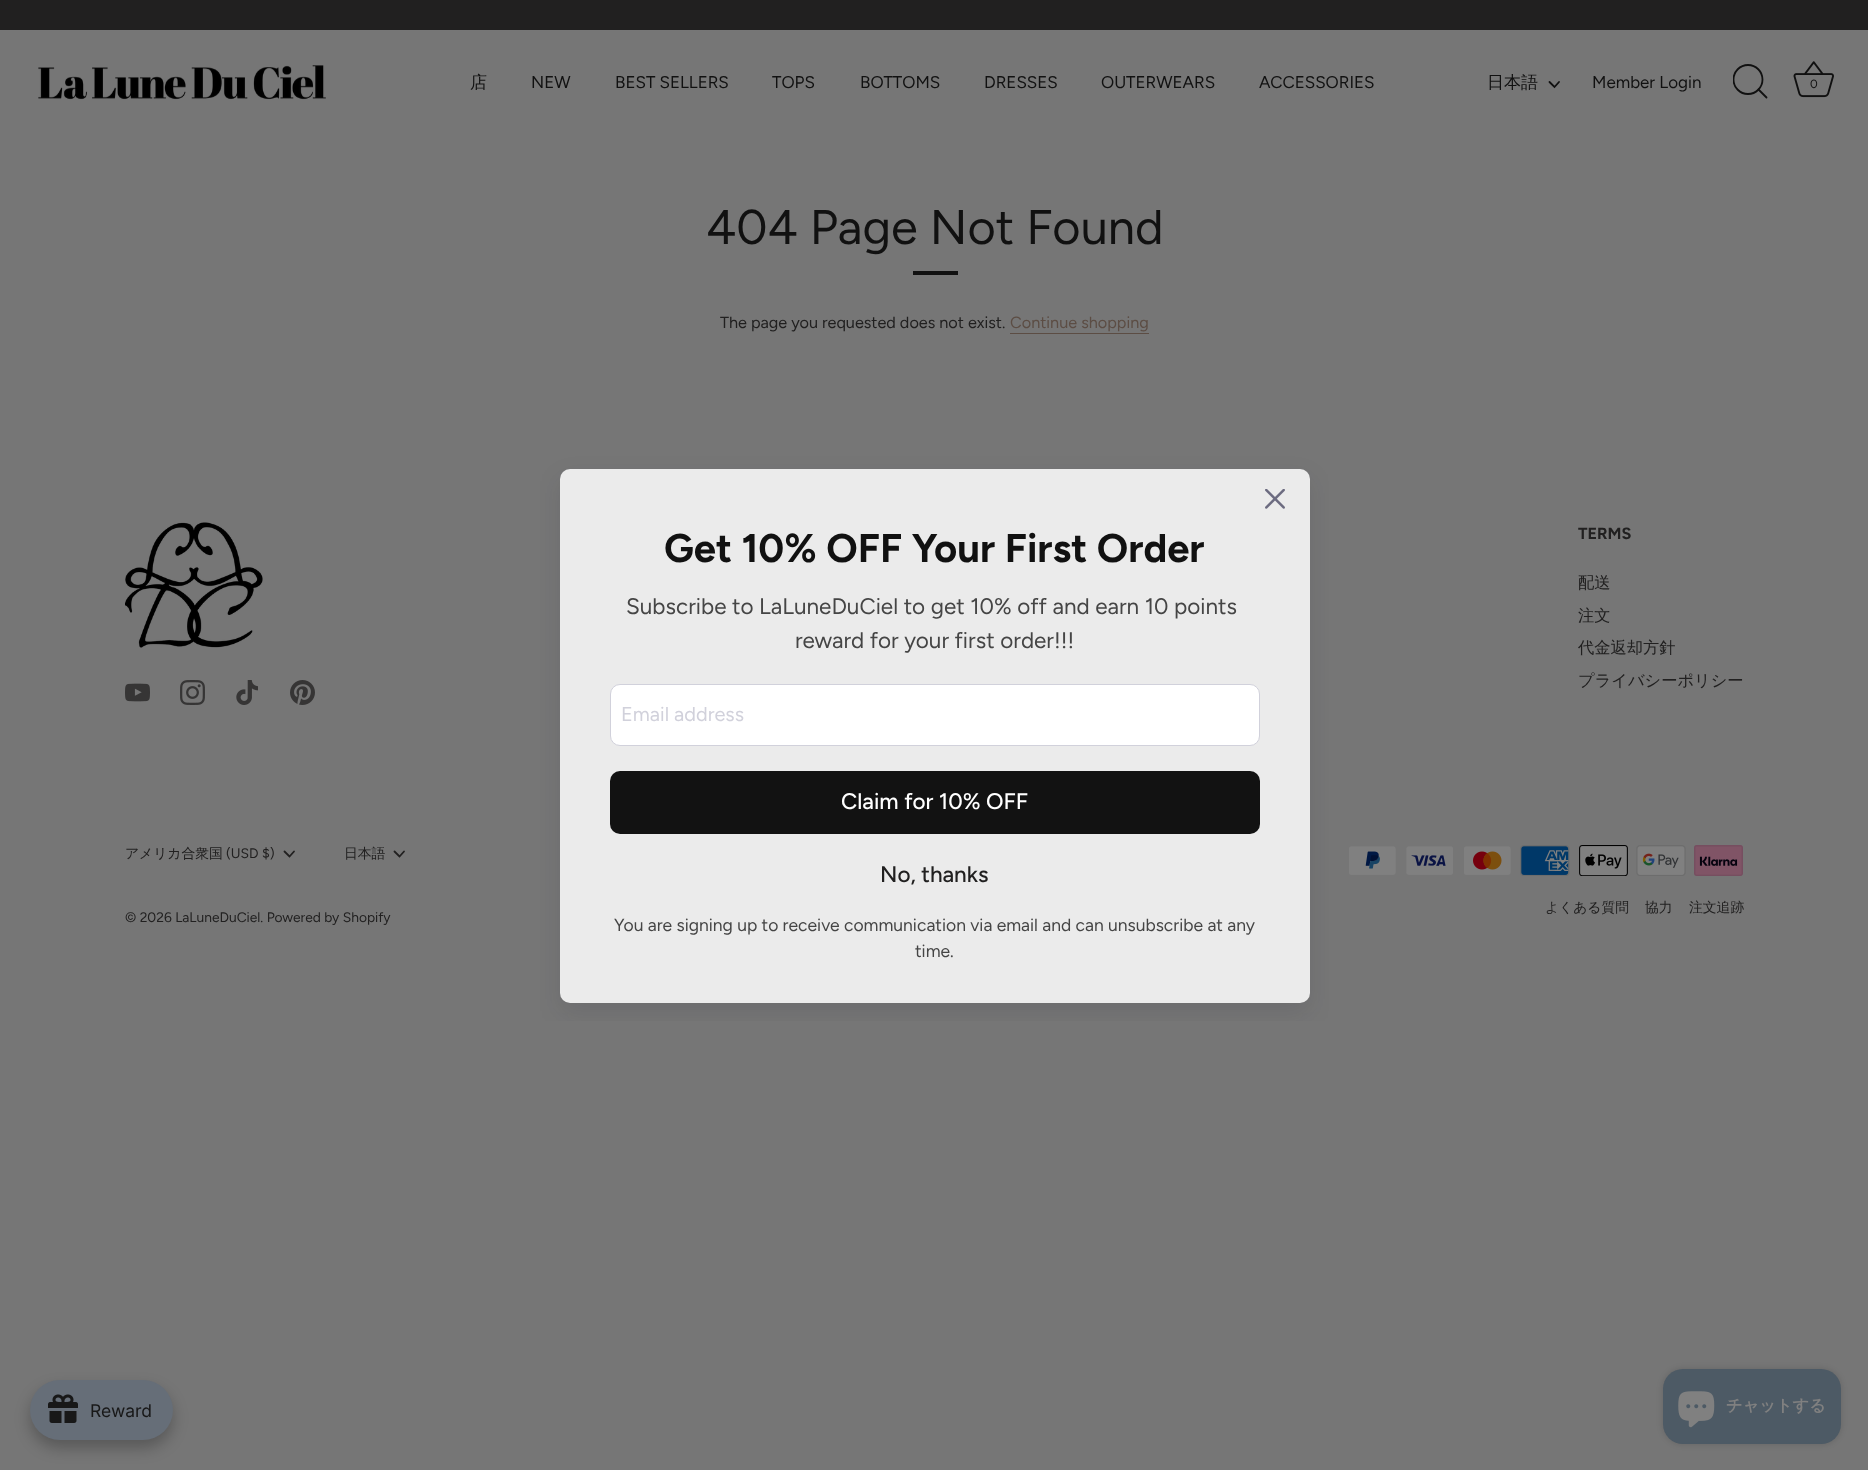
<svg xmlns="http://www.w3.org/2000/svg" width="1868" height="1470">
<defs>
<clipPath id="clip1"><rect x="1733" y="64" width="36" height="36"/></clipPath>
<clipPath id="clip2"><rect x="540" y="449" width="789" height="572"/></clipPath>
</defs>
<rect width="100%" height="100%" fill="#767676"/>
<rect width="1868" height="30" fill="#212020"/>
<image x="38" y="65" width="288" height="35" href="media/1.png"/>
<text x="470" y="88" style="font-family:WenQuanYi Zen Hei;font-size:17px;font-weight:500;fill:#111">店</text>
<text x="531" y="88" style="font-family:Figtree;font-size:17px;fill:#111">NEW</text>
<text x="615" y="88" style="font-family:Figtree;font-size:17px;fill:#111">BEST SELLERS</text>
<text x="772" y="88" style="font-family:Figtree;font-size:17px;fill:#111">TOPS</text>
<text x="860" y="88" style="font-family:Figtree;font-size:17px;fill:#111">BOTTOMS</text>
<text x="984" y="88" style="font-family:Figtree;font-size:17px;fill:#111">DRESSES</text>
<text x="1101" y="88" style="font-family:Figtree;font-size:17px;fill:#111">OUTERWEARS</text>
<text x="1259" y="88" style="font-family:Figtree;font-size:17px;fill:#111">ACCESSORIES</text>
<text x="1487" y="88" style="font-family:WenQuanYi Zen Hei;font-size:17px;font-weight:500;fill:#111">日本語</text>
<path d="M1549.5 82l5 5l4.5-5" fill="none" stroke="#111" stroke-width="1.8" stroke-linecap="round"/>
<text x="1592" y="88" style="font-family:Figtree;font-size:17px;fill:#111">Member Login</text>
<g clip-path="url(#clip1)">
<circle cx="1748" cy="79.5" r="14.5" fill="none" stroke="#111" stroke-width="1.8"/>
</g>
<path d="M1766.5 97.5l-8-8" fill="none" stroke="#111" stroke-width="1.8" stroke-linecap="round" stroke-linejoin="round"/>
<image x="1793" y="61" width="41" height="37" href="media/2.png"/>
<text x="1810" y="88" style="font-family:Figtree;font-size:12px;fill:#111">0</text>
<text x="706" y="244" style="font-family:Figtree;font-size:48.75px;fill:#111">404 Page Not Found</text>
<rect x="913" y="271" width="45" height="4" fill="#111"/>
<text x="720" y="328" style="font-family:Figtree;font-size:16.25px;fill:#212020">The page you requested does not exist.</text>
<text x="1010" y="328" style="font-family:Figtree;font-size:16.25px;fill:#5c4d44">Continue shopping</text>
<rect x="1010" y="333" width="139" height="1" fill="#5c4d44"/>
<image x="125" y="522" width="138" height="126" href="media/3.png"/>
<image x="125" y="683" width="25" height="19" href="media/4.png"/>
<image x="180" y="680" width="25" height="25" href="media/5.png"/>
<image x="236" y="680" width="22" height="25" href="media/6.png"/>
<image x="290" y="680" width="25" height="25" href="media/7.png"/>
<text x="1578" y="539" style="font-family:Figtree;font-size:16.25px;font-weight:bold;fill:#212020">TERMS</text>
<text x="1578" y="588" style="font-family:WenQuanYi Zen Hei;font-size:16.25px;font-weight:500;fill:#212020">配送</text>
<text x="1578" y="621" style="font-family:WenQuanYi Zen Hei;font-size:16.25px;font-weight:500;fill:#212020">注文</text>
<text x="1578" y="653" style="font-family:WenQuanYi Zen Hei;font-size:16.25px;font-weight:500;fill:#212020">代金返却方針</text>
<text x="1578" y="686" style="font-family:WenQuanYi Zen Hei;font-size:16.25px;font-weight:500;fill:#212020">プライバシーポリシー</text>
<text x="125" y="858" style="font-family:WenQuanYi Zen Hei;font-size:13.8px;font-weight:500;fill:#212020">アメリカ合衆国</text>
<text x="226" y="858" style="font-family:Figtree;font-size:13.8px;fill:#212020">(USD $)</text>
<path d="M284.5 851.5l5 5l4.5-5" fill="none" stroke="#212020" stroke-width="1.8" stroke-linecap="round"/>
<text x="344" y="858" style="font-family:WenQuanYi Zen Hei;font-size:13.8px;font-weight:500;fill:#212020">日本語</text>
<path d="M394.5 851.5l5 5l4.5-5" fill="none" stroke="#212020" stroke-width="1.8" stroke-linecap="round"/>
<text x="125" y="922" style="font-family:Figtree;font-size:13.8px;fill:#212020">© 2026 LaLuneDuCiel. Powered by Shopify</text>
<image x="1349" y="846" width="47" height="29" href="media/8.png"/>
<image x="1406" y="846" width="47" height="29" href="media/9.png"/>
<image x="1464" y="846" width="47" height="29" href="media/10.png"/>
<image x="1520" y="845" width="50" height="31" href="media/11.png"/>
<image x="1579" y="845" width="49" height="31" href="media/12.png"/>
<image x="1636" y="845" width="50" height="31" href="media/13.png"/>
<image x="1694" y="845" width="49" height="31" href="media/14.png"/>
<text x="1545" y="912" style="font-family:WenQuanYi Zen Hei;font-size:13.8px;font-weight:500;fill:#212020">よくある質問</text>
<text x="1645" y="912" style="font-family:WenQuanYi Zen Hei;font-size:13.8px;font-weight:500;fill:#212020">協力</text>
<text x="1689" y="912" style="font-family:WenQuanYi Zen Hei;font-size:13.8px;font-weight:500;fill:#212020">注文追跡</text>
<g clip-path="url(#clip2)">
<rect x="560" y="479" width="750" height="534" rx="10" fill="#1211271a" filter="blur(12.5px)"/>
</g>
<rect x="560" y="469" width="750" height="534" rx="10" fill="#ebebeb"/>
<image x="1265" y="489" width="20" height="20" href="media/15.png"/>
<text x="664" y="562" style="font-family:Figtree;font-size:40px;font-weight:bold;fill:#111">Get 10% OFF Your First Order</text>
<text x="626" y="614" style="font-family:Figtree;font-size:22.5px;fill:#454545">Subscribe to LaLuneDuCiel to get 10% off and earn 10 points</text>
<text x="795" y="648" style="font-family:Figtree;font-size:22.5px;fill:#454545">reward for your first order!!!</text>
<rect x="610.5" y="684.5" width="649" height="61" rx="9.5" fill="#fff" stroke="#d1d1db"/>
<text x="621" y="721" style="font-family:Figtree;font-size:20px;fill:#d1d1db">Email address</text>
<rect x="610" y="771" width="650" height="63" rx="10" fill="#121212"/>
<text x="841" y="809" style="font-family:Figtree;font-size:22.5px;font-weight:500;fill:#fff">Claim for 10% OFF</text>
<text x="880" y="882" style="font-family:Figtree;font-size:22.5px;font-weight:500;fill:#212020">No, thanks</text>
<text x="614" y="931" style="font-family:Figtree;font-size:17.5px;fill:#454545">You are signing up to receive communication via email and can unsubscribe at any</text>
<text x="915" y="957" style="font-family:Figtree;font-size:17.5px;fill:#454545">time.</text>
<rect x="30" y="1388" width="143" height="60" rx="30" fill="#00000040" filter="blur(7.5px)"/>
<rect x="30" y="1380" width="143" height="60" rx="30" fill="#666e78"/>
<image x="48" y="1394" width="30" height="29" href="media/16.png"/>
<text x="90" y="1417" style="font-family:Inter;font-size:17.5px;fill:#181818">Reward</text>
<rect x="1663" y="1369" width="178" height="75" rx="20" fill="#00000026" filter="blur(3px)"/>
<rect x="1663" y="1369" width="178" height="75" rx="20" fill="#4d5a65"/>
<image x="1678" y="1391" width="37" height="37" href="media/17.png"/>
<text x="1726" y="1411" style="font-family:WenQuanYi Zen Hei;font-size:16.25px;font-weight:bold;fill:#808080">チャットする</text>
</svg>
